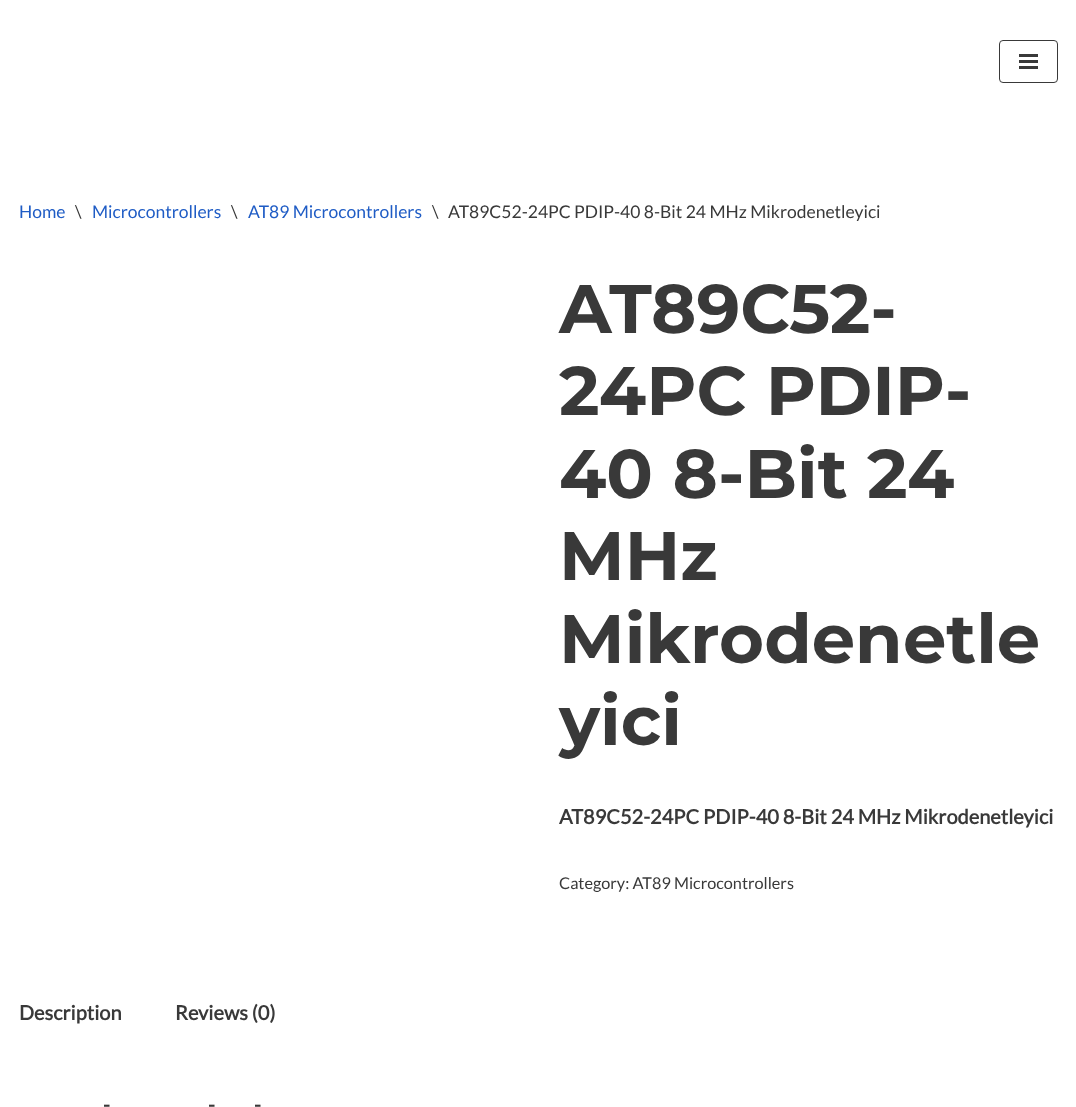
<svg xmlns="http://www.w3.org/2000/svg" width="1076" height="1107">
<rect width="100%" height="100%" fill="#fff"/>
<rect x="999.5" y="40.5" width="58" height="42" rx="3.5" fill="none" stroke="#393939"/>
<rect x="1019" y="54" width="19" height="3" fill="#393939"/>
<rect x="1019" y="60" width="19" height="3" fill="#393939"/>
<rect x="1019" y="66" width="19" height="3" fill="#393939"/>
<text x="19" y="218" style="font-family:Lato;font-size:17.5px;fill:#1f5cc5">Home</text>
<text x="75" y="218" style="font-family:Lato;font-size:17.5px;fill:#393939">\</text>
<text x="92" y="218" style="font-family:Lato;font-size:17.5px;fill:#1f5cc5">Microcontrollers</text>
<text x="231" y="218" style="font-family:Lato;font-size:17.5px;fill:#393939">\</text>
<text x="248" y="218" style="font-family:Lato;font-size:17.5px;fill:#1f5cc5">AT89 Microcontrollers</text>
<text x="432" y="218" style="font-family:Lato;font-size:17.5px;fill:#393939">\</text>
<text x="448" y="218" style="font-family:Lato;font-size:17.5px;fill:#393939">AT89C52-24PC PDIP-40 8-Bit 24 MHz Mikrodenetleyici</text>
<text x="559" y="333" style="font-family:Montserrat;font-size:68.75px;font-weight:bold;fill:#393939">AT89C52-</text>
<text x="559" y="415" style="font-family:Montserrat;font-size:68.75px;font-weight:bold;fill:#393939">24PC PDIP-</text>
<text x="559" y="498" style="font-family:Montserrat;font-size:68.75px;font-weight:bold;fill:#393939">40 8-Bit 24</text>
<text x="559" y="580" style="font-family:Montserrat;font-size:68.75px;font-weight:bold;fill:#393939">MHz</text>
<text x="559" y="663" style="font-family:Montserrat;font-size:68.75px;font-weight:bold;fill:#393939">Mikrodenetle</text>
<text x="559" y="745" style="font-family:Montserrat;font-size:68.75px;font-weight:bold;fill:#393939">yici</text>
<text x="559" y="824" style="font-family:Lato;font-size:20px;font-weight:bold;fill:#393939">AT89C52-24PC PDIP-40 8-Bit 24 MHz Mikrodenetleyici</text>
<text x="559" y="889" style="font-family:Lato;font-size:16.25px;fill:#393939">Category: AT89 Microcontrollers</text>
<text x="19" y="1020" style="font-family:Lato;font-size:20px;font-weight:bold;fill:#393939">Description</text>
<text x="175" y="1020" style="font-family:Lato;font-size:20px;font-weight:bold;fill:#393939">Reviews (0)</text>
<text x="103" y="1112" style="font-family:Lato;font-size:20px;font-weight:bold;fill:#393939">-</text>
<text x="208" y="1112" style="font-family:Lato;font-size:20px;font-weight:bold;fill:#393939">-</text>
<text x="254" y="1112" style="font-family:Lato;font-size:20px;font-weight:bold;fill:#393939">-</text>
</svg>
